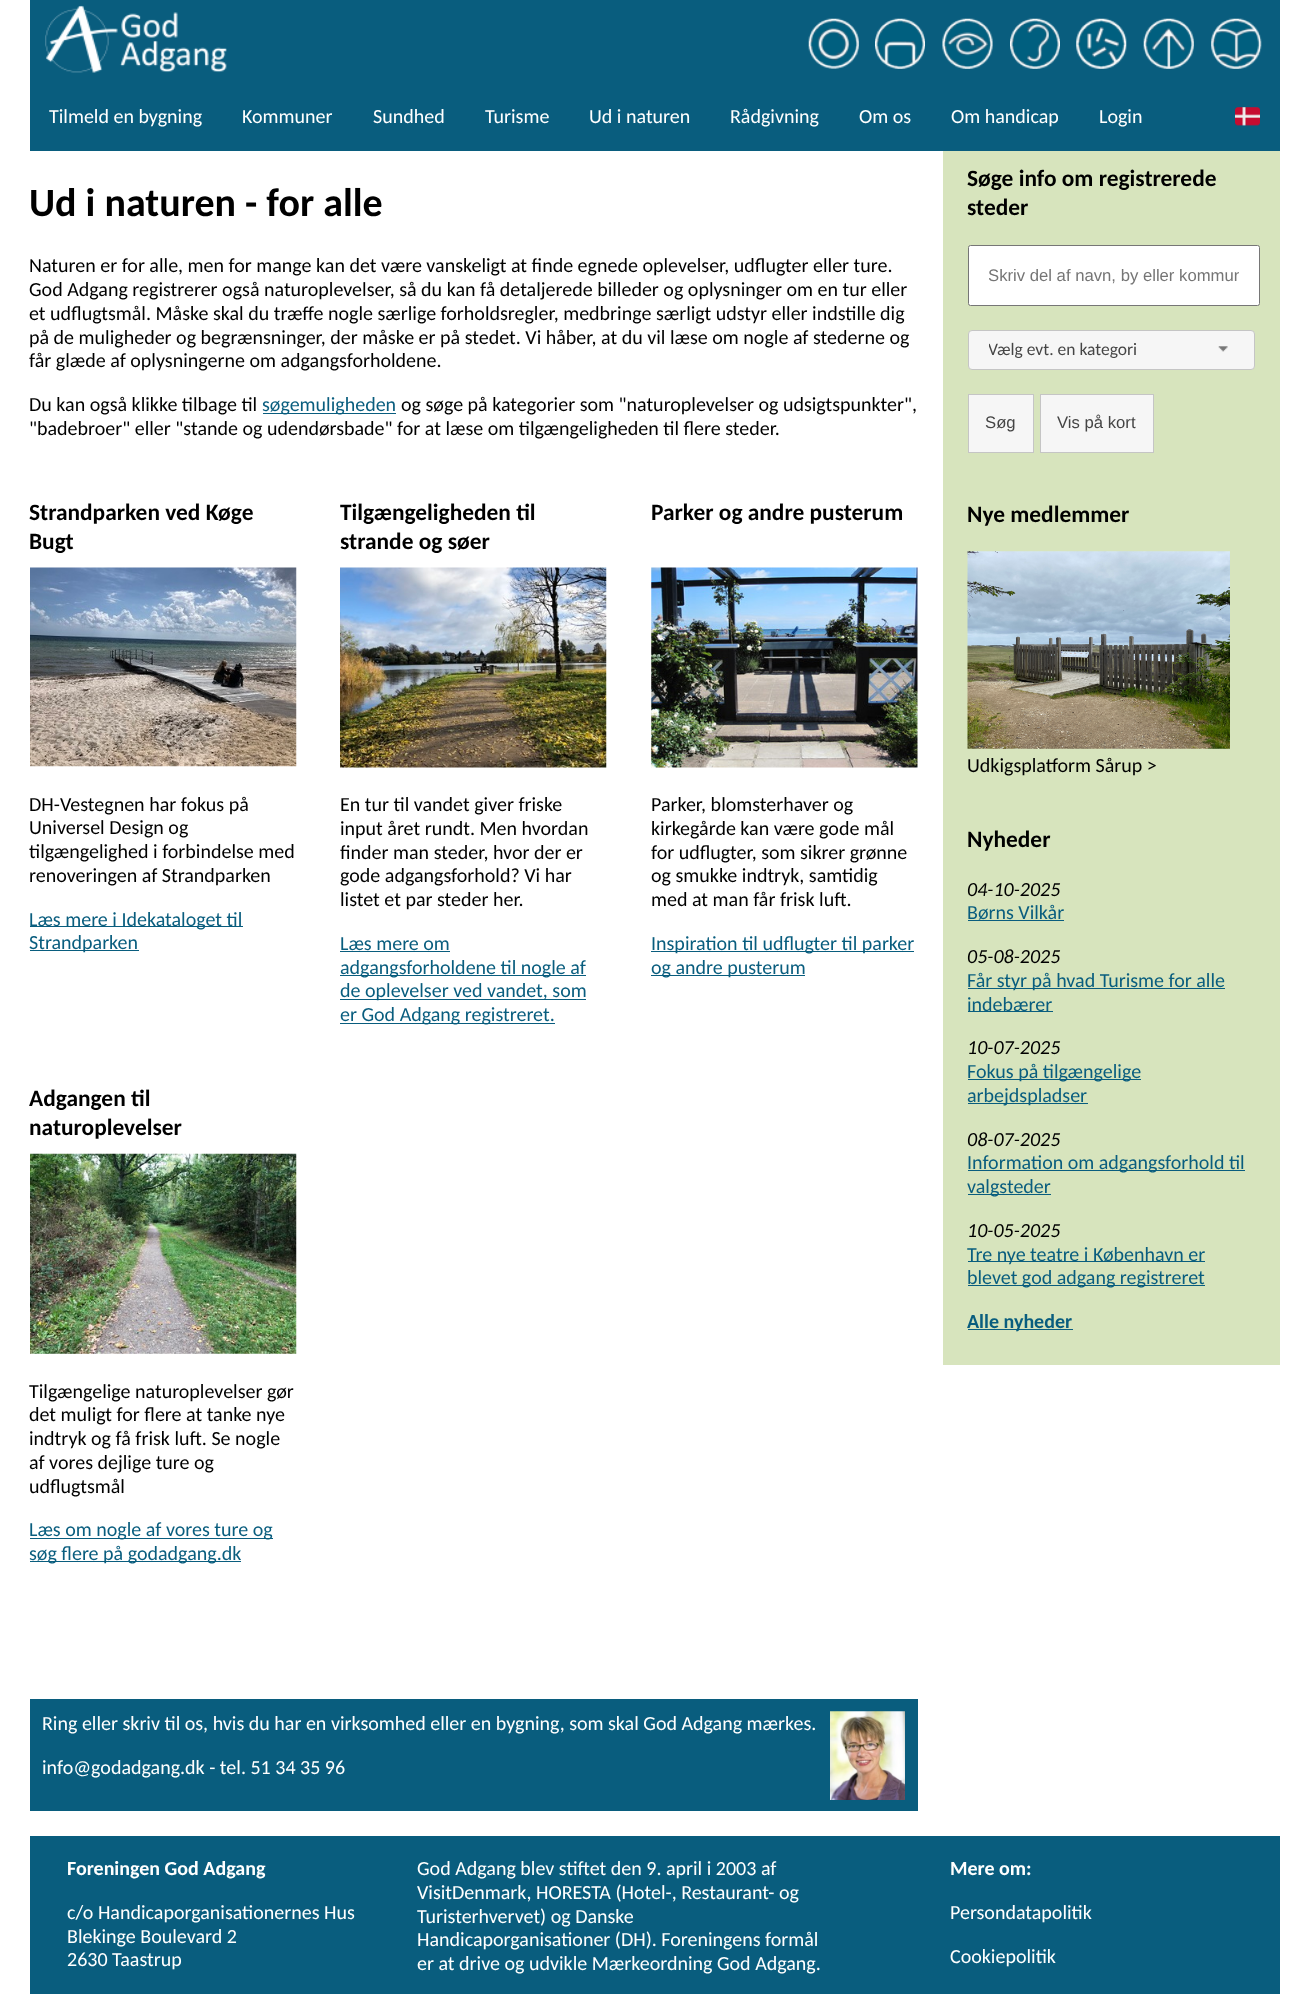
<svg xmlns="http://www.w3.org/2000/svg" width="1308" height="1994">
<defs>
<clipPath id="clip1"><rect x="989" y="266" width="250" height="19"/></clipPath>
<clipPath id="clip2"><rect x="989" y="339" width="220" height="21"/></clipPath>
</defs>
<rect width="100%" height="100%" fill="#fff"/>
<rect x="30" width="1250" height="151" fill="#095d7e"/>
<image x="45" y="5" width="182" height="68" href="media/1.png"/>
<image x="808" y="18" width="51" height="51" href="media/2.png"/>
<image x="875" y="18" width="50" height="51" href="media/3.png"/>
<image x="942" y="18" width="51" height="51" href="media/4.png"/>
<image x="1010" y="18" width="50" height="51" href="media/5.png"/>
<image x="1076" y="18" width="51" height="51" href="media/6.png"/>
<image x="1143" y="18" width="51" height="51" href="media/7.png"/>
<image x="1211" y="18" width="51" height="51" href="media/8.png"/>
<text x="49" y="123" style="font-family:Carlito;font-size:20px;fill:#fff">Tilmeld en bygning</text>
<text x="242" y="123" style="font-family:Carlito;font-size:20px;fill:#fff">Kommuner</text>
<text x="373" y="123" style="font-family:Carlito;font-size:20px;fill:#fff">Sundhed</text>
<text x="485" y="123" style="font-family:Carlito;font-size:20px;fill:#fff">Turisme</text>
<text x="589" y="123" style="font-family:Carlito;font-size:20px;fill:#fff">Ud i naturen</text>
<text x="730" y="123" style="font-family:Carlito;font-size:20px;fill:#fff">Rådgivning</text>
<text x="859" y="123" style="font-family:Carlito;font-size:20px;fill:#fff">Om os</text>
<text x="951" y="123" style="font-family:Carlito;font-size:20px;fill:#fff">Om handicap</text>
<text x="1099" y="123" style="font-family:Carlito;font-size:20px;fill:#fff">Login</text>
<image x="1235" y="107" width="25" height="19" href="media/9.png"/>
<text x="29" y="216" style="font-family:Carlito;font-size:40px;font-weight:bold;fill:#000">Ud i naturen - for alle</text>
<text x="29" y="272" style="font-family:Carlito;font-size:20px;fill:#000">Naturen er for alle, men for mange kan det være vanskeligt at finde egnede oplevelser, udflugter eller ture.</text>
<text x="29" y="296" style="font-family:Carlito;font-size:20px;fill:#000">God Adgang registrerer også naturoplevelser, så du kan få detaljerede billeder og oplysninger om en tur eller</text>
<text x="29" y="320" style="font-family:Carlito;font-size:20px;fill:#000">et udflugtsmål. Måske skal du træffe nogle særlige forholdsregler, medbringe særligt udstyr eller indstille dig</text>
<text x="29" y="344" style="font-family:Carlito;font-size:20px;fill:#000">på de muligheder og begrænsninger, der måske er på stedet. Vi håber, at du vil læse om nogle af stederne og</text>
<text x="29" y="367" style="font-family:Carlito;font-size:20px;fill:#000">får glæde af oplysningerne om adgangsforholdene.</text>
<text x="29" y="411" style="font-family:Carlito;font-size:20px;fill:#000">Du kan også klikke tilbage til</text>
<rect x="263" y="413" width="133" height="1" fill="#095d7e"/>
<text x="262" y="411" style="font-family:Carlito;font-size:20px;fill:#095d7e">søgemuligheden</text>
<text x="401" y="411" style="font-family:Carlito;font-size:20px;fill:#000">og søge på kategorier som "naturoplevelser og udsigtspunkter",</text>
<text x="29" y="435" style="font-family:Carlito;font-size:20px;fill:#000">"badebroer" eller "stande og udendørsbade" for at læse om tilgængeligheden til flere steder.</text>
<text x="29" y="520" style="font-family:Carlito;font-size:23.4px;font-weight:bold;fill:#000">Strandparken ved Køge</text>
<text x="29" y="549" style="font-family:Carlito;font-size:23.4px;font-weight:bold;fill:#000">Bugt</text>
<image x="30" y="567" width="267" height="200" href="media/10.png"/>
<text x="29" y="811" style="font-family:Carlito;font-size:20px;fill:#000">DH-Vestegnen har fokus på</text>
<text x="29" y="834" style="font-family:Carlito;font-size:20px;fill:#000">Universel Design og</text>
<text x="29" y="858" style="font-family:Carlito;font-size:20px;fill:#000">tilgængelighed i forbindelse med</text>
<text x="29" y="882" style="font-family:Carlito;font-size:20px;fill:#000">renoveringen af Strandparken</text>
<rect x="30" y="926" width="213" height="1" fill="#095d7e"/>
<text x="29" y="926" style="font-family:Carlito;font-size:20px;fill:#095d7e">Læs mere i Idekataloget til</text>
<rect x="30" y="950" width="109" height="1" fill="#095d7e"/>
<text x="29" y="949" style="font-family:Carlito;font-size:20px;fill:#095d7e">Strandparken</text>
<text x="340" y="520" style="font-family:Carlito;font-size:23.4px;font-weight:bold;fill:#000">Tilgængeligheden til</text>
<text x="340" y="549" style="font-family:Carlito;font-size:23.4px;font-weight:bold;fill:#000">strande og søer</text>
<image x="340" y="567" width="267" height="201" href="media/11.png"/>
<text x="340" y="811" style="font-family:Carlito;font-size:20px;fill:#000">En tur til vandet giver friske</text>
<text x="340" y="835" style="font-family:Carlito;font-size:20px;fill:#000">input året rundt. Men hvordan</text>
<text x="340" y="859" style="font-family:Carlito;font-size:20px;fill:#000">finder man steder, hvor der er</text>
<text x="340" y="882" style="font-family:Carlito;font-size:20px;fill:#000">gode adgangsforhold? Vi har</text>
<text x="340" y="906" style="font-family:Carlito;font-size:20px;fill:#000">listet et par steder her.</text>
<text x="340" y="950" style="font-family:Carlito;font-size:20px;fill:#095d7e">Læs mere om</text>
<rect x="340" y="951" width="110" height="1" fill="#095d7e"/>
<rect x="340" y="975" width="246" height="1" fill="#095d7e"/>
<text x="340" y="974" style="font-family:Carlito;font-size:20px;fill:#095d7e">adgangsforholdene til nogle af</text>
<rect x="340" y="999" width="246" height="1" fill="#095d7e"/>
<text x="340" y="997" style="font-family:Carlito;font-size:20px;fill:#095d7e">de oplevelser ved vandet, som</text>
<rect x="340" y="1023" width="215" height="1" fill="#095d7e"/>
<text x="340" y="1021" style="font-family:Carlito;font-size:20px;fill:#095d7e">er God Adgang registreret.</text>
<text x="651" y="520" style="font-family:Carlito;font-size:23.4px;font-weight:bold;fill:#000">Parker og andre pusterum</text>
<image x="651" y="567" width="267" height="201" href="media/12.png"/>
<text x="651" y="811" style="font-family:Carlito;font-size:20px;fill:#000">Parker, blomsterhaver og</text>
<text x="651" y="835" style="font-family:Carlito;font-size:20px;fill:#000">kirkegårde kan være gode mål</text>
<text x="651" y="859" style="font-family:Carlito;font-size:20px;fill:#000">for udflugter, som sikrer grønne</text>
<text x="651" y="882" style="font-family:Carlito;font-size:20px;fill:#000">og smukke indtryk, samtidig</text>
<text x="651" y="906" style="font-family:Carlito;font-size:20px;fill:#000">med at man får frisk luft.</text>
<rect x="651" y="951" width="263" height="1" fill="#095d7e"/>
<text x="651" y="950" style="font-family:Carlito;font-size:20px;fill:#095d7e">Inspiration til udflugter til parker</text>
<rect x="651" y="975" width="154" height="1" fill="#095d7e"/>
<text x="651" y="974" style="font-family:Carlito;font-size:20px;fill:#095d7e">og andre pusterum</text>
<text x="29" y="1106" style="font-family:Carlito;font-size:23.4px;font-weight:bold;fill:#000">Adgangen til</text>
<text x="29" y="1135" style="font-family:Carlito;font-size:23.4px;font-weight:bold;fill:#000">naturoplevelser</text>
<image x="30" y="1153" width="267" height="201" href="media/13.png"/>
<text x="29" y="1398" style="font-family:Carlito;font-size:20px;fill:#000">Tilgængelige naturoplevelser gør</text>
<text x="29" y="1421" style="font-family:Carlito;font-size:20px;fill:#000">det muligt for flere at tanke nye</text>
<text x="29" y="1445" style="font-family:Carlito;font-size:20px;fill:#000">indtryk og få frisk luft. Se nogle</text>
<text x="29" y="1469" style="font-family:Carlito;font-size:20px;fill:#000">af vores dejlige ture og</text>
<text x="29" y="1493" style="font-family:Carlito;font-size:20px;fill:#000">udflugtsmål</text>
<rect x="30" y="1538" width="243" height="1" fill="#095d7e"/>
<text x="29" y="1536" style="font-family:Carlito;font-size:20px;fill:#095d7e">Læs om nogle af vores ture og</text>
<rect x="30" y="1561" width="211" height="1" fill="#095d7e"/>
<text x="29" y="1560" style="font-family:Carlito;font-size:20px;fill:#095d7e">søg flere på godadgang.dk</text>
<rect x="30" y="1699" width="888" height="112" fill="#095d7e"/>
<text x="42" y="1730" style="font-family:Carlito;font-size:20px;fill:#fff">Ring eller skriv til os, hvis du har en virksomhed eller en bygning, som skal God Adgang mærkes.</text>
<image x="830" y="1711" width="75" height="89" href="media/14.png"/>
<text x="42" y="1774" style="font-family:Carlito;font-size:20px;fill:#fff">info@godadgang.dk - tel. 51 34 35 96</text>
<rect x="943" y="151" width="337" height="1214" fill="#d7e4bd"/>
<text x="967" y="186" style="font-family:Carlito;font-size:23.4px;font-weight:bold;fill:#000">Søge info om registrerede</text>
<text x="967" y="215" style="font-family:Carlito;font-size:23.4px;font-weight:bold;fill:#000">steder</text>
<rect x="968.5" y="245.5" width="291" height="60" rx="2" fill="#fff" stroke="#767676"/>
<g clip-path="url(#clip1)">
<text x="988" y="281" style="font-family:Liberation Sans;font-size:16.7px;fill:#757575">Skriv del af navn, by eller kommun</text>
</g>
<rect x="968.5" y="330.5" width="286" height="39" rx="3.5" fill="#f6f6f6" stroke="#c5c5c5"/>
<g clip-path="url(#clip2)">
<text x="988" y="355" style="font-family:Carlito;font-size:17.5px;fill:#454545">Vælg evt. en kategori</text>
</g>
<image x="1218" y="346" width="10" height="6" href="media/15.png"/>
<rect x="968.5" y="394.5" width="65" height="58" fill="#f6f6f6" stroke="#c5c5c5"/>
<text x="985" y="428" style="font-family:Liberation Sans;font-size:16.7px;fill:#454545">Søg</text>
<rect x="1040.5" y="394.5" width="113" height="58" fill="#f6f6f6" stroke="#c5c5c5"/>
<text x="1057" y="428" style="font-family:Liberation Sans;font-size:16.7px;fill:#454545">Vis på kort</text>
<text x="967" y="522" style="font-family:Carlito;font-size:23.4px;font-weight:bold;fill:#000">Nye medlemmer</text>
<image x="967" y="551" width="263" height="198" href="media/16.png"/>
<text x="967" y="772" style="font-family:Carlito;font-size:20px;fill:#000">Udkigsplatform Sårup &gt;</text>
<text x="967" y="847" style="font-family:Carlito;font-size:23.4px;font-weight:bold;fill:#000">Nyheder</text>
<text x="967" y="896" style="font-family:Carlito;font-size:20px;font-style:italic;fill:#000">04-10-2025</text>
<text x="967" y="919" style="font-family:Carlito;font-size:20px;fill:#095d7e">Børns Vilkår</text>
<rect x="968" y="920" width="96" height="1" fill="#095d7e"/>
<text x="967" y="963" style="font-family:Carlito;font-size:20px;font-style:italic;fill:#000">05-08-2025</text>
<rect x="968" y="988" width="257" height="1" fill="#095d7e"/>
<text x="967" y="987" style="font-family:Carlito;font-size:20px;fill:#095d7e">Får styr på hvad Turisme for alle</text>
<rect x="968" y="1011" width="85" height="1" fill="#095d7e"/>
<text x="967" y="1011" style="font-family:Carlito;font-size:20px;fill:#095d7e">indebærer</text>
<text x="967" y="1054" style="font-family:Carlito;font-size:20px;font-style:italic;fill:#000">10-07-2025</text>
<rect x="968" y="1079" width="173" height="1" fill="#095d7e"/>
<text x="967" y="1078" style="font-family:Carlito;font-size:20px;fill:#095d7e">Fokus på tilgængelige</text>
<rect x="968" y="1103" width="120" height="1" fill="#095d7e"/>
<text x="967" y="1102" style="font-family:Carlito;font-size:20px;fill:#095d7e">arbejdspladser</text>
<text x="967" y="1146" style="font-family:Carlito;font-size:20px;font-style:italic;fill:#000">08-07-2025</text>
<rect x="968" y="1170" width="277" height="1" fill="#095d7e"/>
<text x="967" y="1169" style="font-family:Carlito;font-size:20px;fill:#095d7e">Information om adgangsforhold til</text>
<rect x="968" y="1194" width="83" height="1" fill="#095d7e"/>
<text x="967" y="1193" style="font-family:Carlito;font-size:20px;fill:#095d7e">valgsteder</text>
<text x="967" y="1237" style="font-family:Carlito;font-size:20px;font-style:italic;fill:#000">10-05-2025</text>
<rect x="968" y="1261" width="237" height="1" fill="#095d7e"/>
<text x="967" y="1261" style="font-family:Carlito;font-size:20px;fill:#095d7e">Tre nye teatre i København er</text>
<rect x="968" y="1285" width="237" height="1" fill="#095d7e"/>
<text x="967" y="1284" style="font-family:Carlito;font-size:20px;fill:#095d7e">blevet god adgang registreret</text>
<rect x="968" y="1329" width="105" height="1" fill="#095d7e"/>
<text x="967" y="1328" style="font-family:Carlito;font-size:20px;font-weight:bold;fill:#095d7e">Alle nyheder</text>
<rect x="30" y="1836" width="1250" height="158" fill="#095d7e"/>
<text x="67" y="1875" style="font-family:Carlito;font-size:20px;font-weight:bold;fill:#fff">Foreningen God Adgang</text>
<text x="67" y="1919" style="font-family:Carlito;font-size:20px;fill:#fff">c/o Handicaporganisationernes Hus</text>
<text x="67" y="1943" style="font-family:Carlito;font-size:20px;fill:#fff">Blekinge Boulevard 2</text>
<text x="67" y="1966" style="font-family:Carlito;font-size:20px;fill:#fff">2630 Taastrup</text>
<text x="417" y="1875" style="font-family:Carlito;font-size:20px;fill:#fff">God Adgang blev stiftet den 9. april i 2003 af</text>
<text x="417" y="1899" style="font-family:Carlito;font-size:20px;fill:#fff">VisitDenmark, HORESTA (Hotel-, Restaurant- og</text>
<text x="417" y="1923" style="font-family:Carlito;font-size:20px;fill:#fff">Turisterhvervet) og Danske</text>
<text x="417" y="1946" style="font-family:Carlito;font-size:20px;fill:#fff">Handicaporganisationer (DH). Foreningens formål</text>
<text x="417" y="1970" style="font-family:Carlito;font-size:20px;fill:#fff">er at drive og udvikle Mærkeordning God Adgang.</text>
<text x="950" y="1875" style="font-family:Carlito;font-size:20px;font-weight:bold;fill:#fff">Mere om:</text>
<text x="950" y="1919" style="font-family:Carlito;font-size:20px;fill:#fff">Persondatapolitik</text>
<text x="950" y="1963" style="font-family:Carlito;font-size:20px;fill:#fff">Cookiepolitik</text>
</svg>
